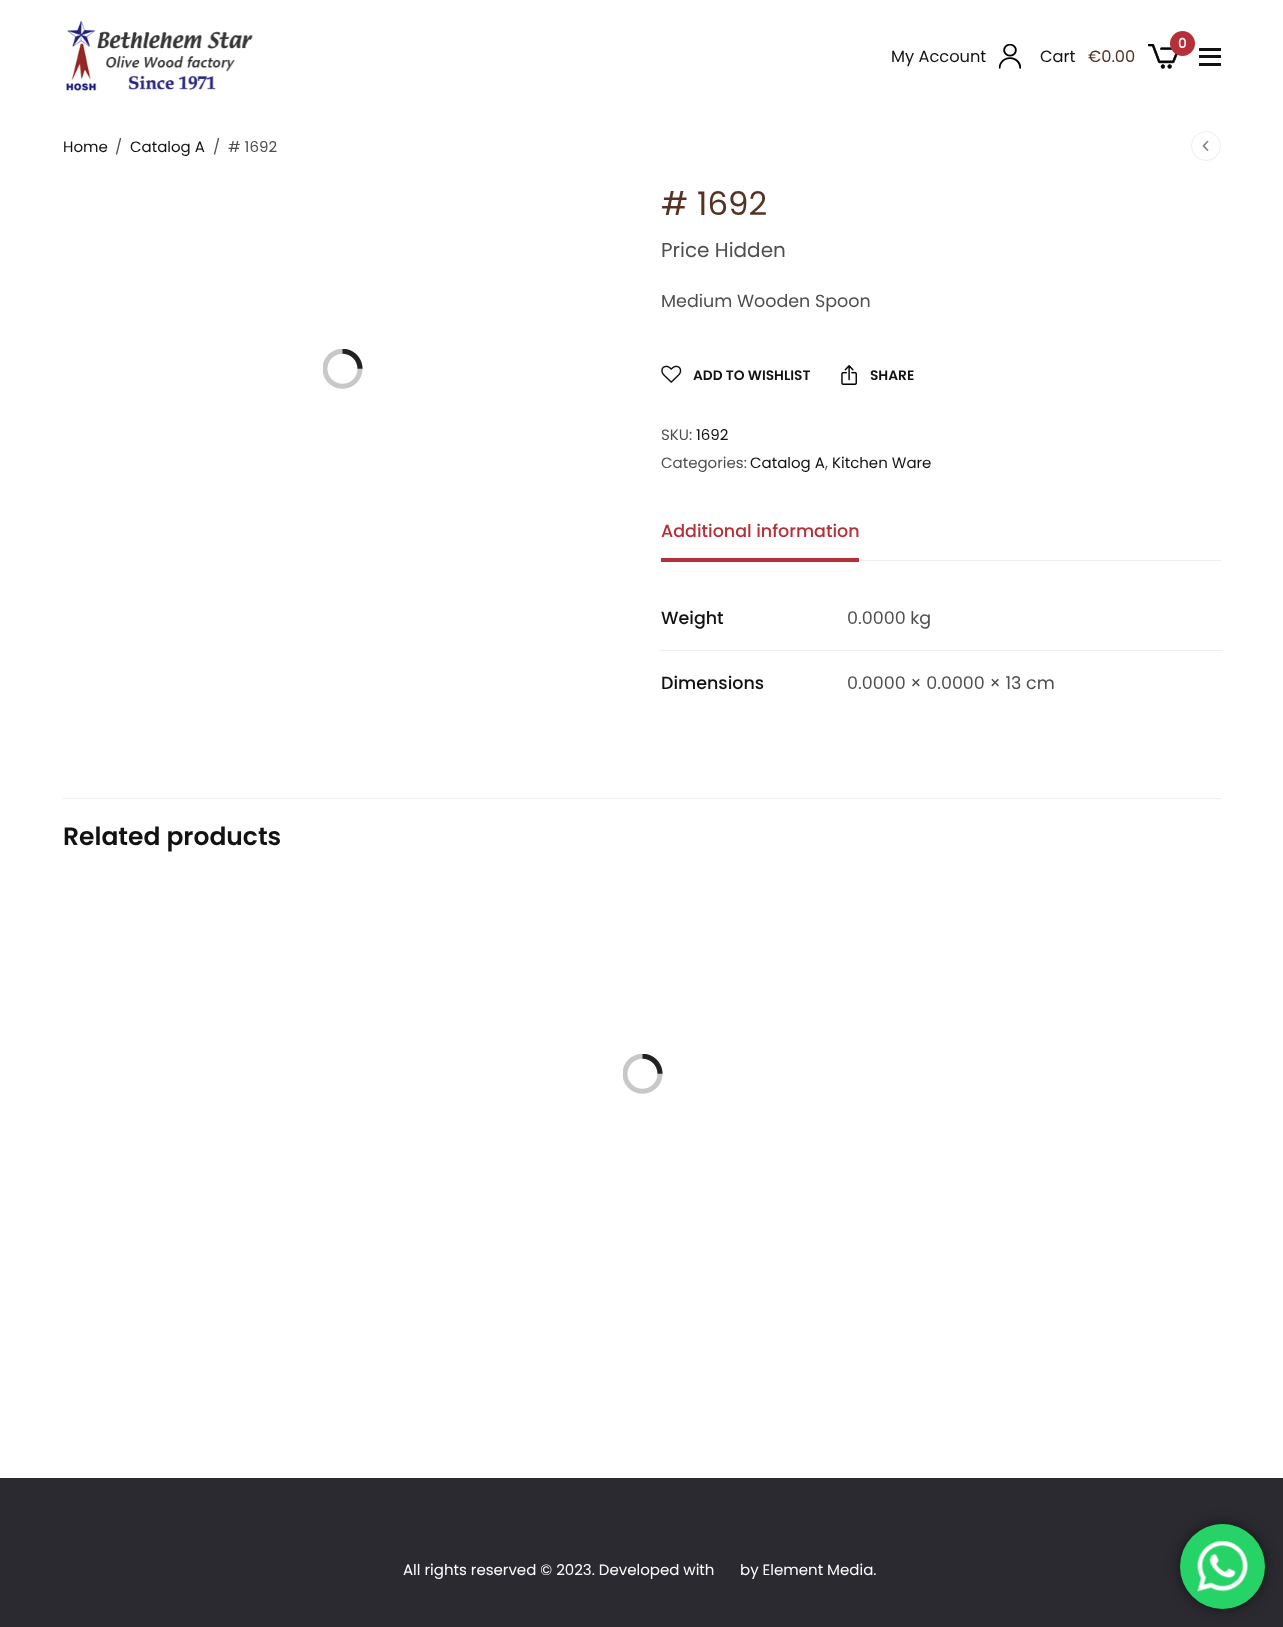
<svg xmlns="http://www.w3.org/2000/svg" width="1283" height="1627">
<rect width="100%" height="100%" fill="#fff"/>
<image x="66" y="21" width="187" height="70" href="media/1.png"/>
<text x="891" y="62" style="font-family:Poppins;font-size:16.25px;fill:#121212">My Account</text>
<image x="999" y="44" width="22" height="25" href="media/2.png"/>
<image x="1148" y="44" width="30" height="25" href="media/3.png"/>
<circle cx="1182.5" cy="43.5" r="12.5" fill="#b63039"/>
<text x="1178" y="48" style="font-family:Poppins;font-size:13.75px;font-weight:500;fill:#fff">0</text>
<text x="1040" y="62" style="font-family:Poppins;font-size:16.25px;fill:#121212">Cart</text>
<text x="1088" y="62" style="font-family:Poppins;font-size:16.25px;fill:#563224">€0.00</text>
<rect x="1199" y="48" width="22" height="3" fill="#121212"/>
<rect x="1199" y="55" width="22" height="3" fill="#121212"/>
<rect x="1199" y="63" width="22" height="3" fill="#121212"/>
<text x="63" y="152" style="font-family:Poppins;font-size:15px;fill:#121212">Home</text>
<text x="115" y="152" style="font-family:Poppins;font-size:15px;fill:#4f4f4f">/</text>
<text x="130" y="152" style="font-family:Poppins;font-size:15px;fill:#121212">Catalog A</text>
<text x="213" y="152" style="font-family:Poppins;font-size:15px;fill:#4f4f4f">/</text>
<text x="228" y="152" style="font-family:Poppins;font-size:15px;fill:#4f4f4f"># 1692</text>
<circle cx="1206" cy="146" r="14.5" fill="none" stroke="#eee"/>
<image x="1202" y="140" width="7" height="11" href="media/4.png"/>
<image x="323" y="349" width="40" height="40" href="media/5.png"/>
<text x="661" y="215" style="font-family:Poppins;font-size:32.5px;fill:#563224"># 1692</text>
<text x="661" y="257" style="font-family:Poppins;font-size:20px;fill:#4f4f4f">Price Hidden</text>
<text x="661" y="307" style="font-family:Poppins;font-size:17.5px;fill:#4f4f4f">Medium Wooden Spoon</text>
<image x="661" y="365" width="21" height="18" href="media/6.png"/>
<text x="693" y="380" style="font-family:Poppins;font-size:13.75px;font-weight:600;fill:#121212">ADD TO WISHLIST</text>
<image x="841" y="365" width="16" height="20" href="media/7.png"/>
<text x="870" y="380" style="font-family:Poppins;font-size:13.75px;font-weight:600;fill:#121212">SHARE</text>
<text x="661" y="440" style="font-family:Poppins;font-size:15px;fill:#4f4f4f">SKU:</text>
<text x="696" y="440" style="font-family:Poppins;font-size:15px;fill:#121212">1692</text>
<text x="661" y="468" style="font-family:Poppins;font-size:15px;fill:#4f4f4f">Categories:</text>
<text x="750" y="468" style="font-family:Poppins;font-size:15px;fill:#121212">Catalog A</text>
<text x="825" y="468" style="font-family:Poppins;font-size:15px;fill:#4f4f4f">,</text>
<text x="832" y="468" style="font-family:Poppins;font-size:15px;fill:#121212">Kitchen Ware</text>
<rect x="859" y="560" width="362" height="1" fill="#eee"/>
<rect x="661" y="558" width="198" height="4" fill="#b63039"/>
<text x="661" y="537" style="font-family:Poppins;font-size:17.5px;font-weight:500;fill:#b63039">Additional information</text>
<rect x="660" y="650" width="563" height="1" fill="#eee"/>
<text x="661" y="624" style="font-family:Poppins;font-size:17.5px;font-weight:500;fill:#121212">Weight</text>
<text x="847" y="624" style="font-family:Poppins;font-size:17.5px;fill:#4f4f4f">0.0000 kg</text>
<text x="661" y="689" style="font-family:Poppins;font-size:17.5px;font-weight:500;fill:#121212">Dimensions</text>
<text x="847" y="689" style="font-family:Poppins;font-size:17.5px;fill:#4f4f4f">0.0000 × 0.0000 × 13 cm</text>
<rect x="63" y="798" width="1158" height="1" fill="#eee"/>
<text x="63" y="845" style="font-family:Poppins;font-size:25px;font-weight:600;fill:#121212">Related products</text>
<image x="623" y="1054" width="40" height="40" href="media/5.png"/>
<rect y="1478" width="1283" height="149" fill="#2a2a30"/>
<text x="403" y="1575" style="font-family:Poppins;font-size:15px;fill:#fff">All rights reserved © 2023. Developed with</text>
<text x="740" y="1575" style="font-family:Poppins;font-size:15px;fill:#fff">by Element Media.</text>
<rect x="1180" y="1524" width="85" height="85" rx="42.5" fill="#00000080" filter="blur(7px)"/>
<circle cx="1222.5" cy="1566.5" r="42.5" fill="#25d366"/>
<image x="1197" y="1541" width="51" height="51" href="media/8.png"/>
</svg>
